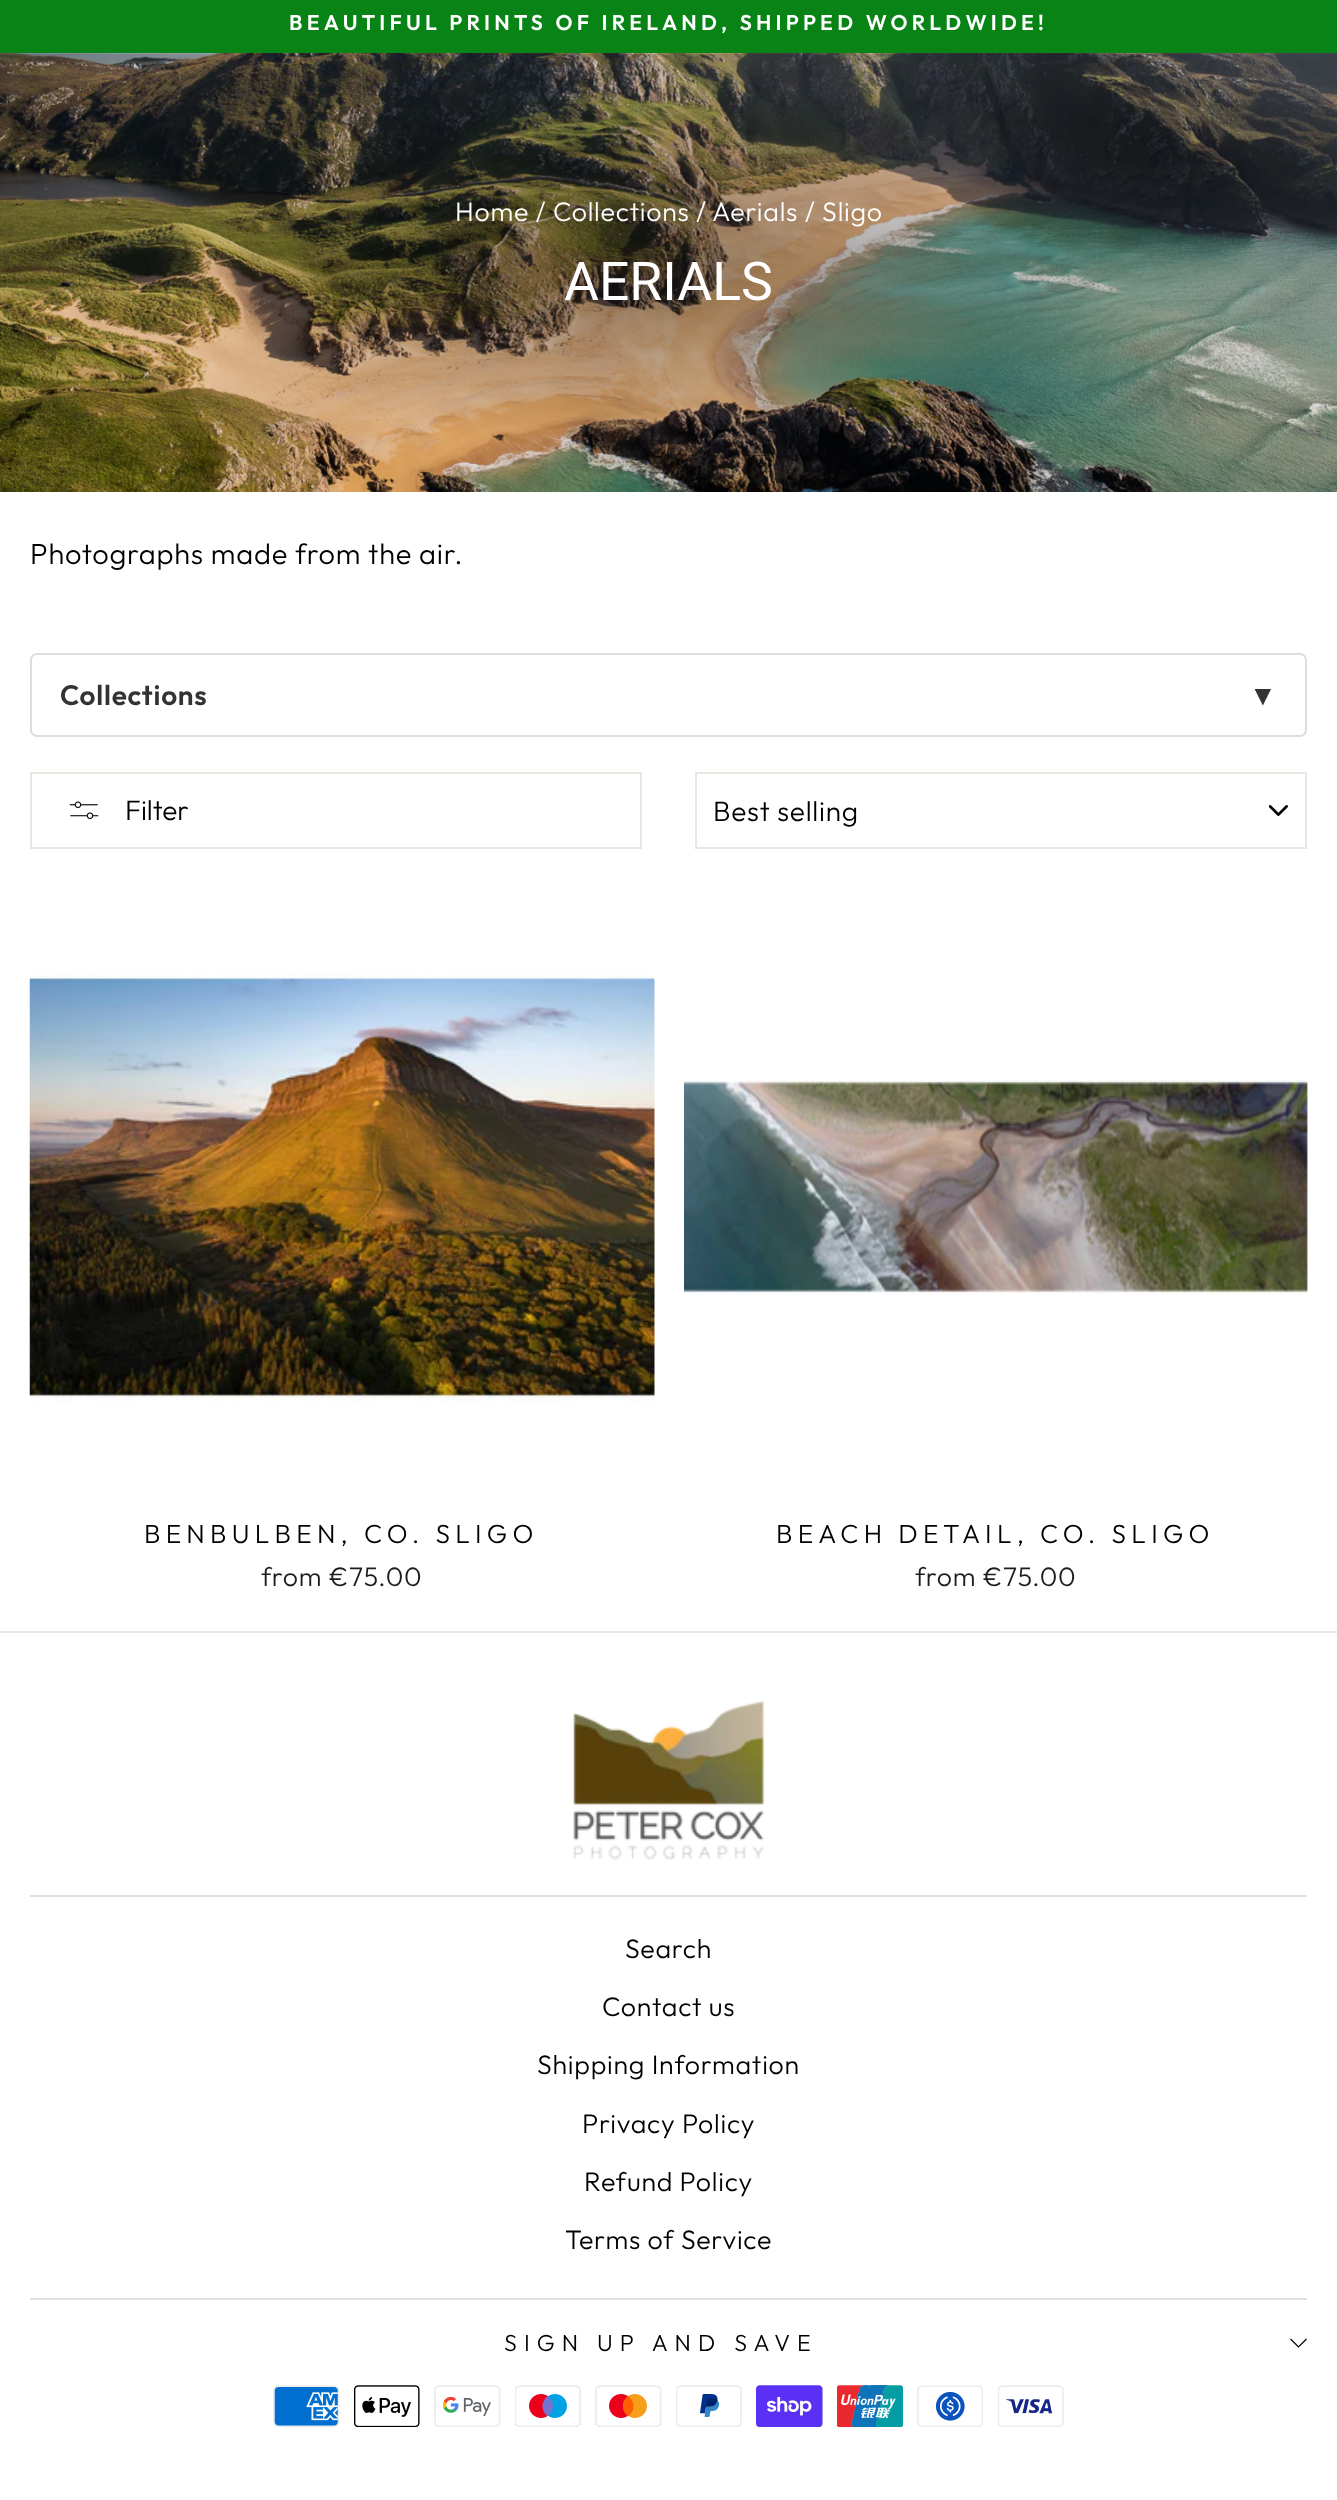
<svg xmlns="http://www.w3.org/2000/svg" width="1337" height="2500">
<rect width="100%" height="100%" fill="#fff"/>
<rect width="1337" height="54" fill="#088315"/>
<text x="289" y="30" style="font-family:Outfit;font-size:21.25px;font-weight:600;letter-spacing:4.25px;fill:#fff">BEAUTIFUL PRINTS OF IRELAND, SHIPPED WORLDWIDE!</text>
<image x="0" y="53" width="1337" height="439" href="media/1.png"/>
<text x="455" y="221" style="font-family:Outfit;font-size:26.75px;font-weight:300;letter-spacing:0.75px;fill:#fff">Home / Collections /</text>
<text x="712" y="221" style="font-family:Outfit;font-size:26.75px;font-weight:300;letter-spacing:0.75px;fill:#fff">Aerials / Sligo</text>
<text x="564" y="300" style="font-family:Roboto;font-size:53.5px;fill:#fff">AERIALS</text>
<text x="30" y="564" style="font-family:Outfit;font-size:29px;font-weight:300;letter-spacing:0.75px;fill:#000">Photographs made from the air.</text>
<rect x="31" y="654" width="1275" height="82" rx="6" fill="none" stroke="#ddd" stroke-width="2"/>
<text x="60" y="705" style="font-family:Outfit;font-size:28px;font-weight:600;letter-spacing:0.75px;fill:#333">Collections</text>
<text x="1249" y="705" style="font-family:Liberation Sans;font-size:28px;font-weight:bold;letter-spacing:0.75px;fill:#333">▼</text>
<rect x="31" y="773" width="610" height="75" fill="none" stroke="#e8e8e1" stroke-width="2"/>
<image x="69" y="801" width="30" height="18" href="media/2.png"/>
<text x="125" y="820" style="font-family:Outfit;font-size:28px;font-weight:300;fill:#000">Filter</text>
<image x="1269" y="805" width="19" height="11" href="media/3.png"/>
<rect x="696" y="773" width="610" height="75" fill="none" stroke="#e8e8e1" stroke-width="2"/>
<text x="713" y="821" style="font-family:Outfit;font-size:28px;font-weight:300;letter-spacing:0.75px;fill:#000">Best selling</text>
<image x="29" y="972" width="626" height="431" href="media/4.png"/>
<text x="144" y="1543" style="font-family:Outfit;font-size:26.25px;font-weight:300;letter-spacing:5.25px;fill:#000">BENBULBEN, CO. SLIGO</text>
<text x="261" y="1586" style="font-family:Outfit;font-size:26.75px;font-weight:300;letter-spacing:0.75px;fill:#1c1d1d">from €75.00</text>
<image x="684" y="1080" width="624" height="214" href="media/5.png"/>
<text x="776" y="1543" style="font-family:Outfit;font-size:26.25px;font-weight:300;letter-spacing:5.25px;fill:#000">BEACH DETAIL, CO. SLIGO</text>
<text x="915" y="1586" style="font-family:Outfit;font-size:26.75px;font-weight:300;letter-spacing:0.75px;fill:#1c1d1d">from €75.00</text>
<rect y="1631" width="1337" height="2" fill="#e8e8e1"/>
<image x="573" y="1700" width="192" height="160" href="media/6.png"/>
<rect x="30" y="1895" width="1277" height="2" fill="#e0e0e0"/>
<text x="625" y="1958" style="font-family:Outfit;font-size:26.75px;font-weight:300;letter-spacing:0.75px;fill:#000">Search</text>
<text x="602" y="2016" style="font-family:Outfit;font-size:26.75px;font-weight:300;letter-spacing:0.75px;fill:#000">Contact us</text>
<text x="537" y="2074" style="font-family:Outfit;font-size:26.75px;font-weight:300;letter-spacing:0.75px;fill:#000">Shipping Information</text>
<text x="582" y="2133" style="font-family:Outfit;font-size:26.75px;font-weight:300;letter-spacing:0.75px;fill:#000">Privacy Policy</text>
<text x="584" y="2191" style="font-family:Outfit;font-size:26.75px;font-weight:300;letter-spacing:0.75px;fill:#000">Refund Policy</text>
<text x="565" y="2249" style="font-family:Outfit;font-size:26.75px;font-weight:300;letter-spacing:0.75px;fill:#000">Terms of Service</text>
<rect x="30" y="2298" width="1277" height="2" fill="#e0e0e0"/>
<text x="504" y="2351" style="font-family:Outfit;font-size:23.25px;font-weight:300;letter-spacing:7px;fill:#000">SIGN UP AND SAVE</text>
<path d="M1290.5 2339l8 8l8-8" fill="none" stroke="#000" stroke-width="1.2"/>
<image x="273" y="2385" width="67" height="42" href="media/7.png"/>
<image x="354" y="2385" width="66" height="42" href="media/8.png"/>
<image x="434" y="2385" width="67" height="42" href="media/9.png"/>
<image x="515" y="2385" width="66" height="42" href="media/10.png"/>
<image x="595" y="2385" width="67" height="42" href="media/11.png"/>
<image x="676" y="2385" width="66" height="42" href="media/12.png"/>
<image x="756" y="2385" width="67" height="42" href="media/13.png"/>
<image x="837" y="2385" width="66" height="42" href="media/14.png"/>
<image x="917" y="2385" width="66" height="42" href="media/15.png"/>
<image x="998" y="2385" width="66" height="42" href="media/16.png"/>
</svg>
